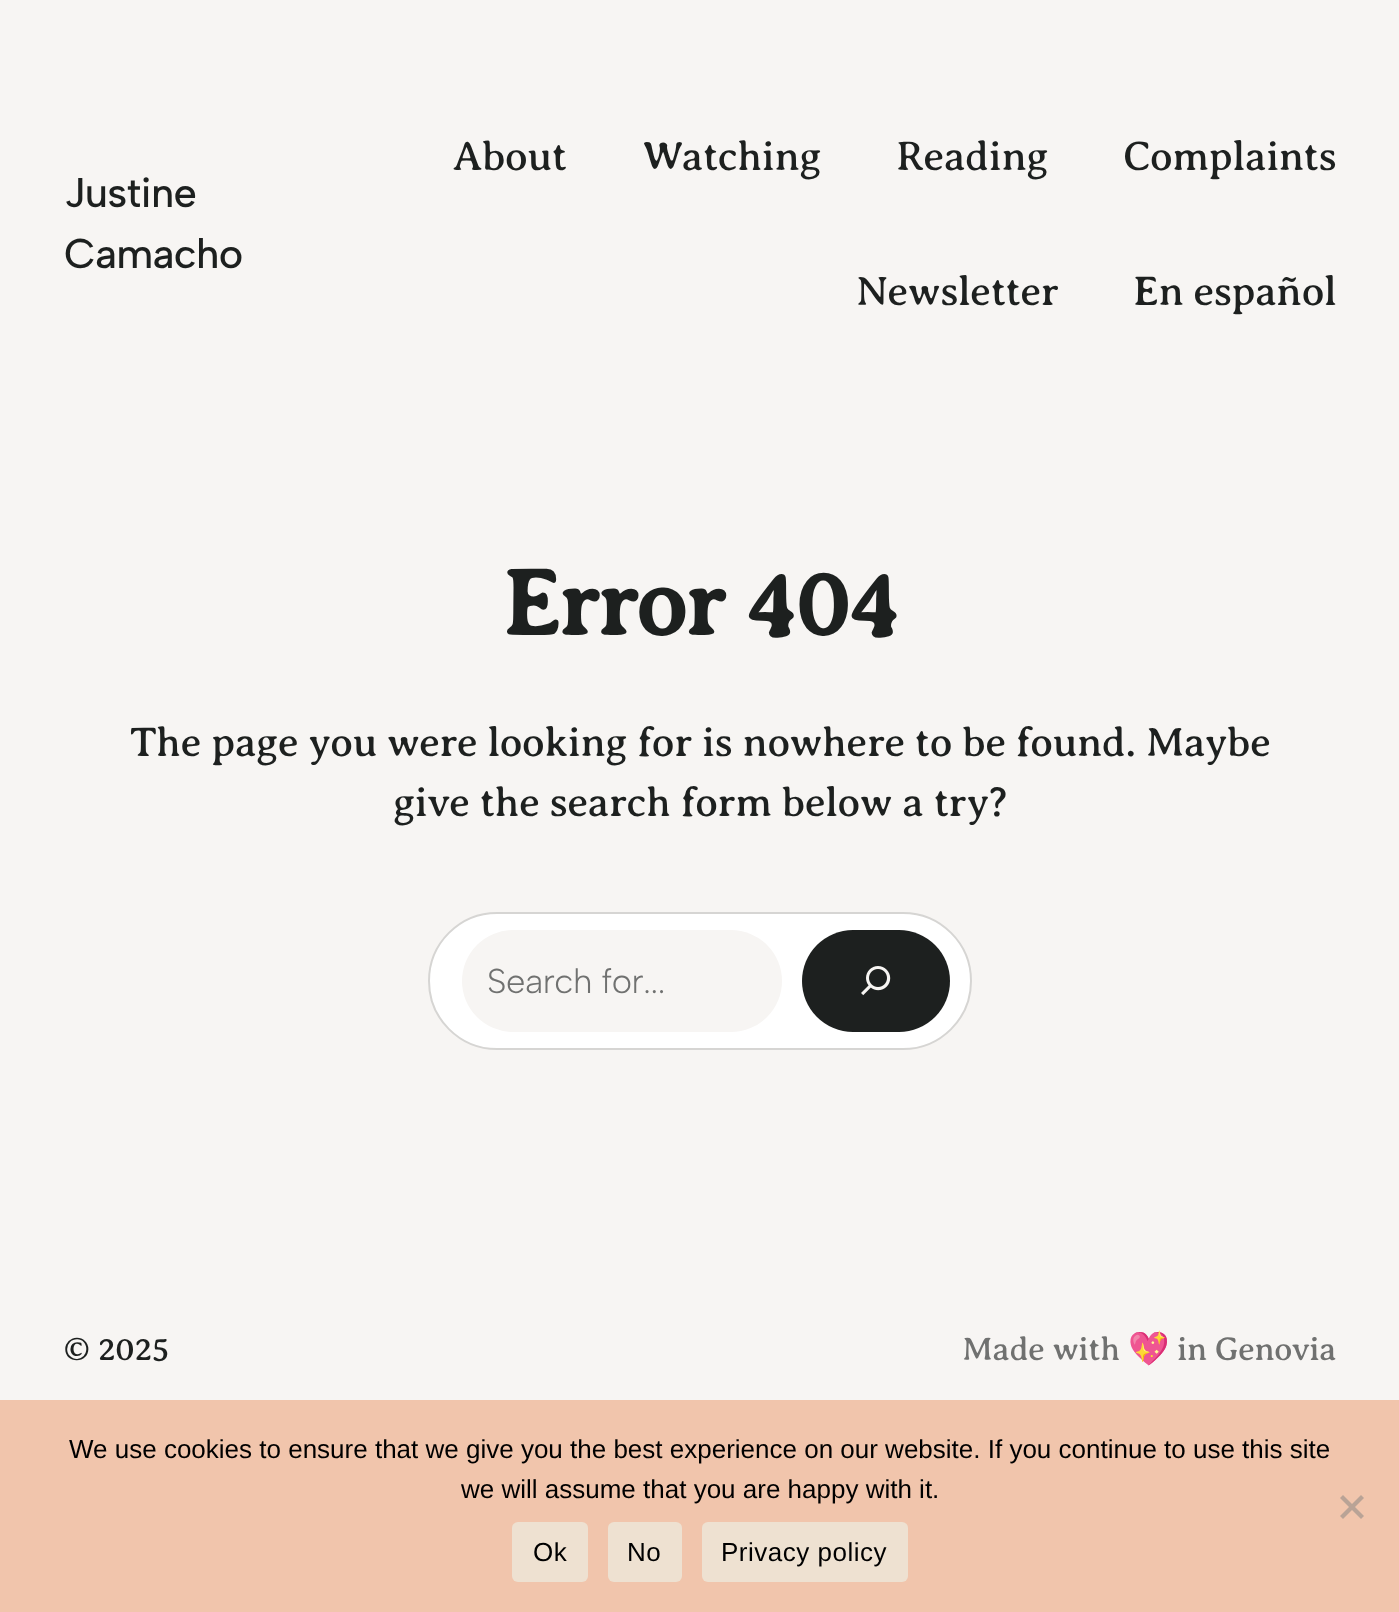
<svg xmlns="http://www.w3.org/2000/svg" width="1399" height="1612">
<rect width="100%" height="100%" fill="#f7f5f3"/>
<text x="64" y="207" style="font-family:Albert Sans;font-size:41.6px;font-weight:500;letter-spacing:-0.75px;fill:#1d201f">Justine</text>
<text x="64" y="268" style="font-family:Albert Sans;font-size:41.6px;font-weight:500;letter-spacing:-0.75px;fill:#1d201f">Camacho</text>
<text x="453" y="170" style="font-family:Averia Serif Libre;font-size:41.6px;letter-spacing:-0.42px;fill:#1d201f">About</text>
<text x="642" y="170" style="font-family:Averia Serif Libre;font-size:41.6px;letter-spacing:-0.42px;fill:#1d201f">Watching</text>
<text x="896" y="170" style="font-family:Averia Serif Libre;font-size:41.6px;letter-spacing:-0.42px;fill:#1d201f">Reading</text>
<text x="1123" y="170" style="font-family:Averia Serif Libre;font-size:41.6px;letter-spacing:-0.42px;fill:#1d201f">Complaints</text>
<text x="856" y="305" style="font-family:Averia Serif Libre;font-size:41.6px;letter-spacing:-0.42px;fill:#1d201f">Newsletter</text>
<text x="1133" y="305" style="font-family:Averia Serif Libre;font-size:41.6px;letter-spacing:-0.42px;fill:#1d201f">En español</text>
<text x="502" y="635" style="font-family:Averia Serif Libre;font-size:93.5px;font-weight:bold;letter-spacing:-1.9px;fill:#1d201f">Error 404</text>
<text x="130" y="756" style="font-family:Averia Serif Libre;font-size:41.6px;letter-spacing:-0.42px;fill:#1d201f">The page you were looking for is nowhere to be found. Maybe</text>
<text x="393" y="816" style="font-family:Averia Serif Libre;font-size:41.6px;letter-spacing:-0.42px;fill:#1d201f">give the search form below a try?</text>
<rect x="429" y="913" width="542" height="136" rx="68" fill="#fff" stroke="#d6d5d3" stroke-width="2"/>
<rect x="462" y="930" width="320" height="102" rx="51" fill="#f7f5f3"/>
<text x="487" y="993" style="font-family:Albert Sans;font-size:34.5px;font-weight:300;letter-spacing:-0.42px;fill:#707170">Search for...</text>
<rect x="802" y="930" width="148" height="102" rx="51" fill="#1d201f"/>
<image x="861" y="966" width="30" height="30" href="media/1.png"/>
<text x="64" y="1360" style="font-family:Averia Serif Libre;font-size:33.25px;letter-spacing:-0.42px;fill:#1d201f">© 2025</text>
<text x="962" y="1360" style="font-family:Averia Serif Libre;font-size:33.25px;letter-spacing:-0.42px;fill:#707170">Made with</text>
<text x="1128" y="1360" style="font-family:Noto Color Emoji;font-size:33.25px;letter-spacing:-0.42px;fill:#707170">💖</text>
<text x="1177" y="1360" style="font-family:Averia Serif Libre;font-size:33.25px;letter-spacing:-0.42px;fill:#707170">in Genovia</text>
<rect y="1400" width="1399" height="212" fill="#f1c5ac"/>
<text x="69" y="1458" style="font-family:Liberation Sans;font-size:26px;fill:#000">We use cookies to ensure that we give you the best experience on our website. If you continue to use this site</text>
<text x="461" y="1498" style="font-family:Liberation Sans;font-size:26px;fill:#000">we will assume that you are happy with it.</text>
<path d="M1361 1495l3 3l-21 21l-3-3z" fill="#b9a396"/>
<path d="M1340 1498l3-3l21 21l-3 3z" fill="#b9a396"/>
<rect x="512" y="1522" width="76" height="60" rx="6" fill="#eee1d1"/>
<text x="533" y="1561" style="font-family:Liberation Sans;font-size:26px;letter-spacing:0.5px;fill:#000">Ok</text>
<rect x="608" y="1522" width="74" height="60" rx="6" fill="#eee1d1"/>
<text x="627" y="1561" style="font-family:Liberation Sans;font-size:26px;letter-spacing:0.5px;fill:#000">No</text>
<rect x="702" y="1522" width="206" height="60" rx="6" fill="#eee1d1"/>
<text x="721" y="1561" style="font-family:Liberation Sans;font-size:26px;letter-spacing:0.5px;fill:#000">Privacy policy</text>
</svg>
